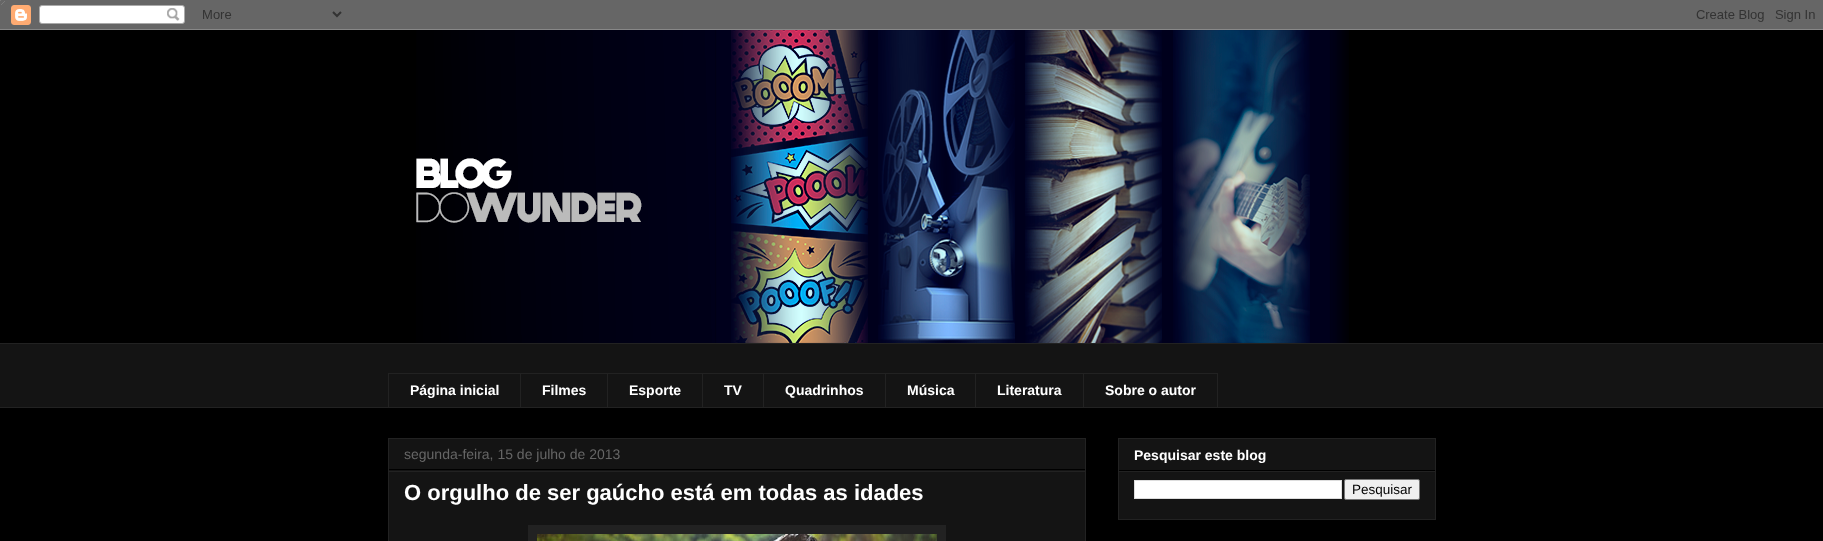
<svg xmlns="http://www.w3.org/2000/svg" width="1823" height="541">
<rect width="100%" height="100%" fill="#000"/>
<image x="0" y="0" width="5" height="5" href="media/1.png"/>
<image x="0" y="0" width="1823" height="30" href="media/2.png"/>
<image x="416" y="30" width="933" height="313" href="media/3.png"/>
<rect y="344" width="1823" height="63" fill="#141414"/>
<rect y="343" width="1823" height="1" fill="#222"/>
<rect x="388" y="373" width="695" height="1" fill="#222"/>
<rect x="388" y="373" width="1" height="35" fill="#222"/>
<text x="410" y="395" style="font-family:Liberation Sans;font-size:14px;font-weight:bold;fill:#fff">Página inicial</text>
<rect x="520" y="373" width="1" height="35" fill="#222"/>
<text x="542" y="395" style="font-family:Liberation Sans;font-size:14px;font-weight:bold;fill:#fff">Filmes</text>
<rect x="607" y="373" width="1" height="35" fill="#222"/>
<text x="629" y="395" style="font-family:Liberation Sans;font-size:14px;font-weight:bold;fill:#fff">Esporte</text>
<rect x="702" y="373" width="1" height="35" fill="#222"/>
<text x="724" y="395" style="font-family:Liberation Sans;font-size:14px;font-weight:bold;fill:#fff">TV</text>
<rect x="763" y="373" width="1" height="35" fill="#222"/>
<text x="785" y="395" style="font-family:Liberation Sans;font-size:14px;font-weight:bold;fill:#fff">Quadrinhos</text>
<rect x="885" y="373" width="1" height="35" fill="#222"/>
<text x="907" y="395" style="font-family:Liberation Sans;font-size:14px;font-weight:bold;fill:#fff">Música</text>
<rect x="975" y="373" width="1" height="35" fill="#222"/>
<text x="997" y="395" style="font-family:Liberation Sans;font-size:14px;font-weight:bold;fill:#fff">Literatura</text>
<rect x="1083.5" y="373.5" width="134" height="34" fill="none" stroke="#222"/>
<text x="1105" y="395" style="font-family:Liberation Sans;font-size:14px;font-weight:bold;fill:#fff">Sobre o autor</text>
<rect y="407" width="1823" height="1" fill="#222"/>
<rect x="388.5" y="438.5" width="697" height="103" fill="#141414" stroke="#222"/>
<rect x="389" y="469" width="696" height="1" fill="#000"/>
<text x="404" y="459" style="font-family:Liberation Sans;font-size:14px;fill:#666">segunda-feira, 15 de julho de 2013</text>
<rect x="389" y="471" width="696" height="1" fill="#222"/>
<text x="404" y="500" style="font-family:Liberation Sans;font-size:22px;font-weight:bold;fill:#fff">O orgulho de ser gaúcho está em todas as idades</text>
<rect x="528" y="525" width="418" height="16" fill="#222"/>
<image x="537" y="534" width="400" height="7" href="media/4.png"/>
<rect x="1118.5" y="438.5" width="317" height="81" fill="#141414" stroke="#222"/>
<rect x="1119" y="470" width="316" height="1" fill="#000"/>
<text x="1134" y="460" style="font-family:Liberation Sans;font-size:14px;font-weight:bold;fill:#fff">Pesquisar este blog</text>
<rect x="1119" y="471" width="316" height="1" fill="#222"/>
<rect x="1134.5" y="480.5" width="207" height="18" fill="#fff" stroke="#ddd"/>
<rect x="1344.5" y="479.5" width="75" height="20" rx="1.5" fill="#efefef" stroke="#767676"/>
<text x="1352" y="494" style="font-family:Liberation Sans;font-size:13.5px;fill:#000">Pesquisar</text>
</svg>
